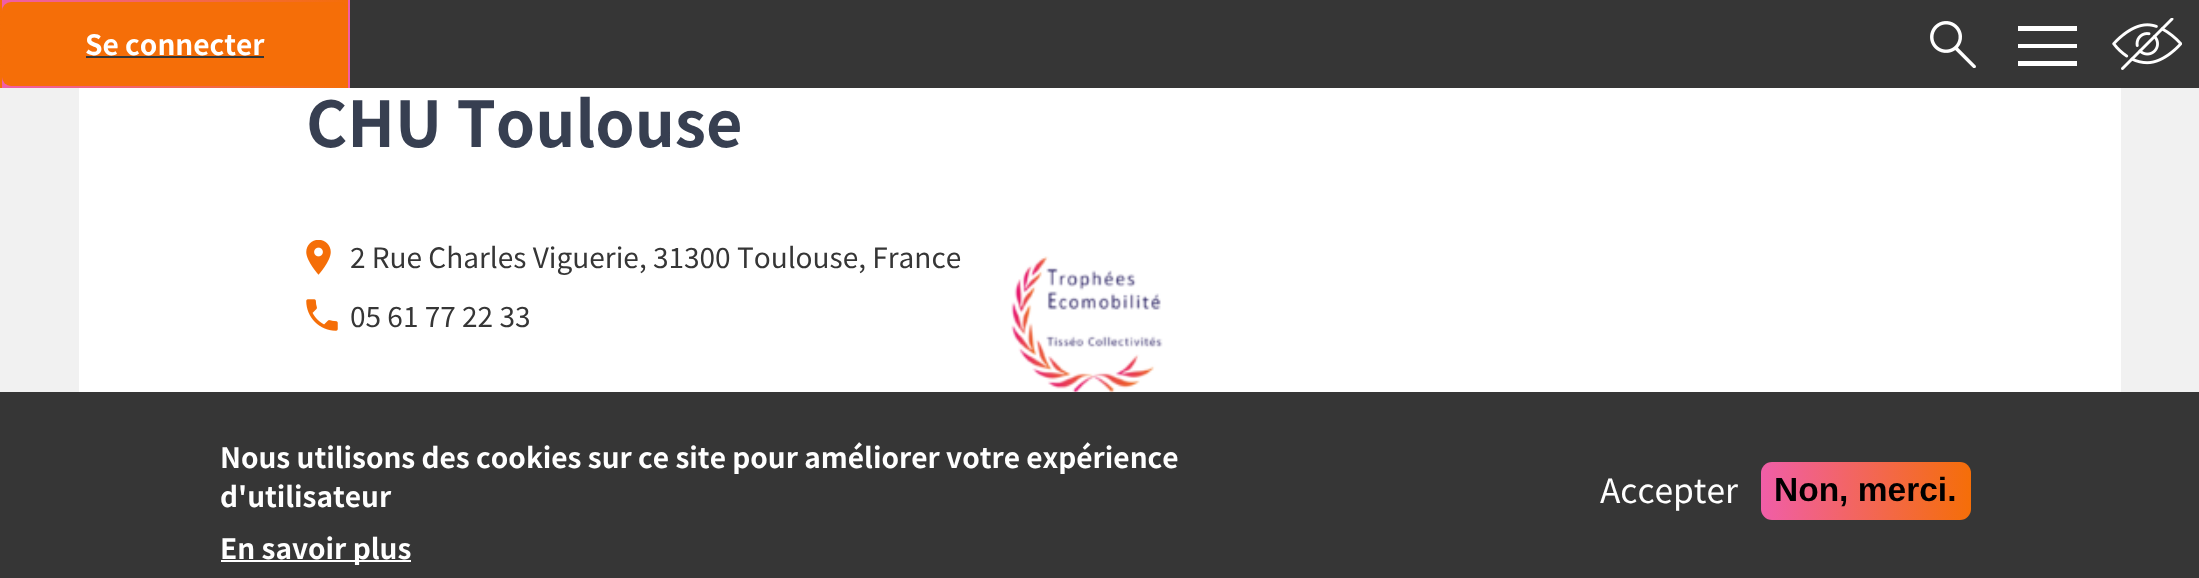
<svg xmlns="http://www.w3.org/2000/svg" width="2199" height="578">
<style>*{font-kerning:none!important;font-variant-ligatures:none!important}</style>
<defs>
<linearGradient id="g1" gradientUnits="userSpaceOnUse" x1="-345" y1="44" x2="1.8" y2="44"><stop offset="0" stop-color="#f05ea8"/><stop offset="1" stop-color="#f56e08"/></linearGradient>
<linearGradient id="g2" gradientUnits="userSpaceOnUse" x1="1.8" y1="44" x2="348" y2="44"><stop offset="0" stop-color="#f05ea8"/><stop offset="1" stop-color="#f56e08"/></linearGradient>
<linearGradient id="g3" gradientUnits="userSpaceOnUse" x1="348" y1="44" x2="695" y2="44"><stop offset="0" stop-color="#f05ea8"/><stop offset="1" stop-color="#f56e08"/></linearGradient>
<linearGradient id="g4" gradientUnits="userSpaceOnUse" x1="1761" y1="491" x2="1971" y2="491"><stop offset="0" stop-color="#f05ea8"/><stop offset="1" stop-color="#f56e08"/></linearGradient>
</defs>
<rect width="100%" height="100%" fill="#f1f1f1"/>
<rect x="350" width="1849" height="88" fill="#363636"/>
<rect width="2" height="88" fill="url(#g1)"/>
<rect x="2" width="346" height="88" fill="url(#g2)"/>
<rect x="348" width="2" height="88" fill="url(#g3)"/>
<rect x="2" y="2" width="346" height="84" rx="9" fill="#f56e08"/>
<text x="85" y="55" style="font-family:Noto Sans JP;font-size:28px;font-weight:bold;fill:#fff">Se connecter</text>
<rect x="86" y="56" width="178" height="2" fill="#363636"/>
<image x="1930" y="21" width="46" height="47" href="media/1.png"/>
<rect x="2018" y="26" width="59" height="5" fill="#fff"/>
<rect x="2018" y="44" width="59" height="4" fill="#fff"/>
<rect x="2018" y="61" width="59" height="5" fill="#fff"/>
<image x="2112" y="18" width="70" height="52" href="media/2.png"/>
<rect x="79" y="88" width="2042" height="304" fill="#fff"/>
<text x="306" y="147" style="font-family:Noto Sans JP;font-size:63px;font-weight:bold;fill:#373f51">CHU Toulouse</text>
<image x="306" y="240" width="25" height="35" href="media/3.png"/>
<text x="350" y="268" style="font-family:Noto Sans JP;font-size:28px;fill:#363636">2 Rue Charles Viguerie, 31300 Toulouse, France</text>
<image x="306" y="299" width="32" height="32" href="media/4.png"/>
<text x="350" y="327" style="font-family:Noto Sans JP;font-size:28px;fill:#363636">05 61 77 22 33</text>
<image x="1011" y="256" width="152" height="136" href="media/5.png"/>
<rect y="392" width="2199" height="186" fill="#363636"/>
<text x="220" y="468" style="font-family:Noto Sans JP;font-size:28px;font-weight:bold;fill:#fff">Nous utilisons des cookies sur ce site pour améliorer votre expérience</text>
<text x="220" y="507" style="font-family:Noto Sans JP;font-size:28px;font-weight:bold;fill:#fff">d'utilisateur</text>
<rect x="221" y="560" width="190" height="2" fill="#fff"/>
<text x="220" y="559" style="font-family:Noto Sans JP;font-size:28px;font-weight:bold;fill:#fff">En savoir plus</text>
<text x="1600" y="503" style="font-family:Noto Sans JP;font-size:33.5px;fill:#fff">Accepter</text>
<rect x="1761" y="462" width="210" height="58" rx="11" fill="url(#g4)"/>
<text x="1774" y="501" style="font-family:Liberation Sans;font-size:33.5px;font-weight:bold;fill:#000">Non, merci.</text>
</svg>
